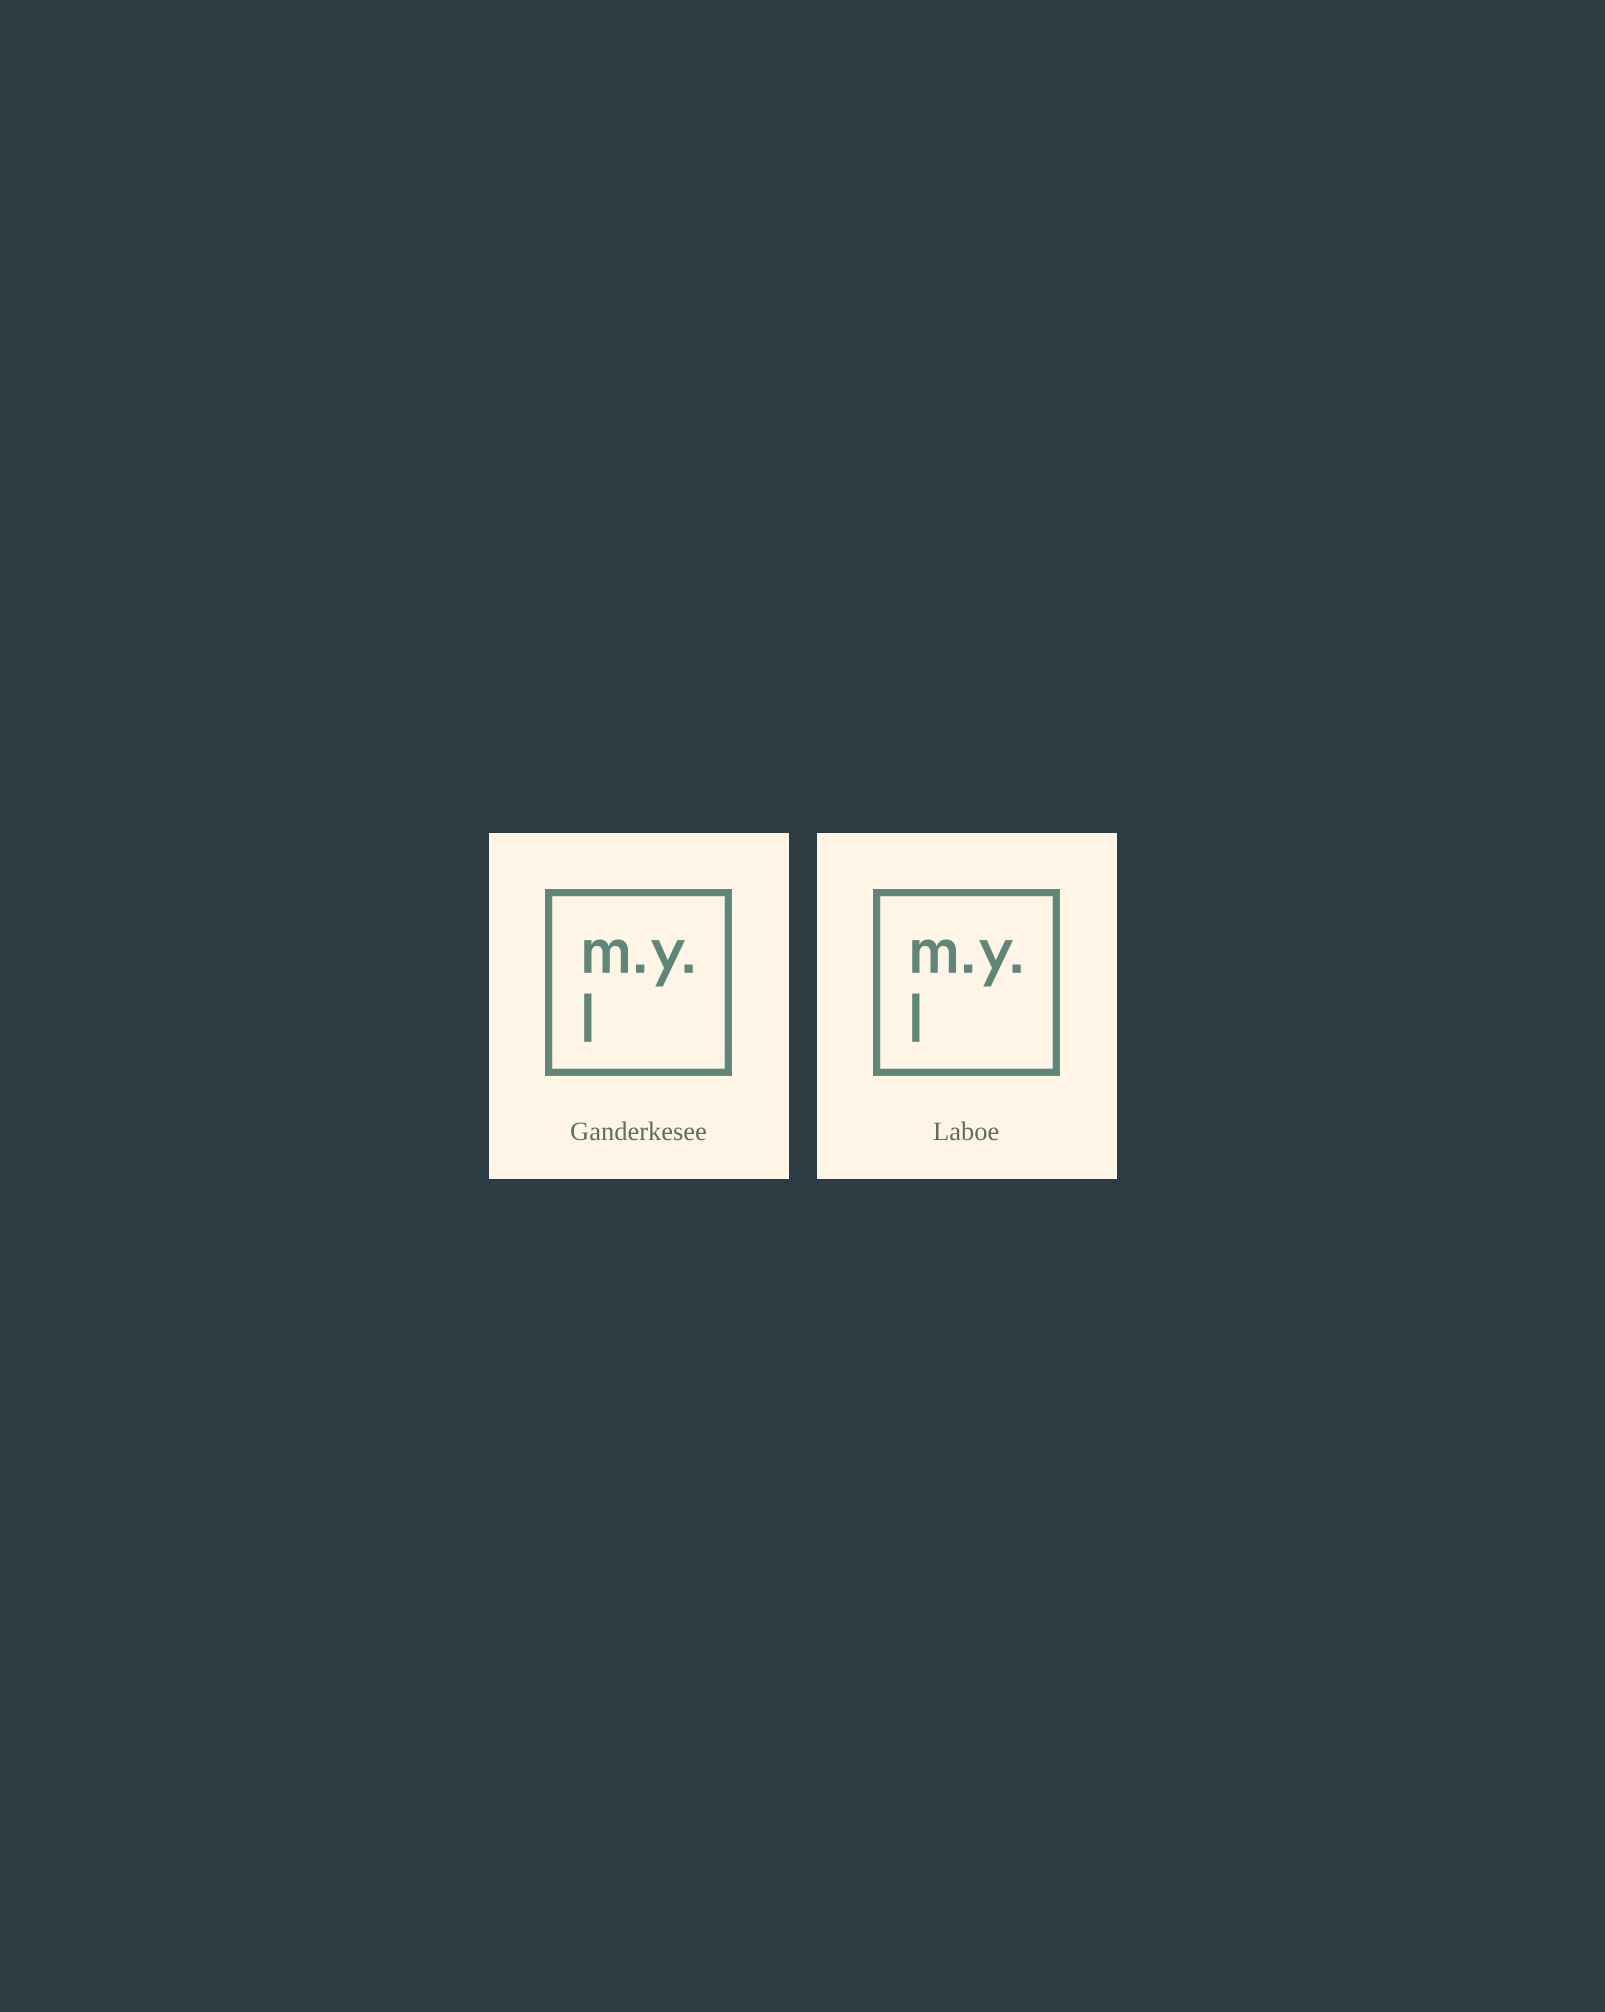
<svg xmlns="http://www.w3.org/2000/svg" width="1605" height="2012">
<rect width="100%" height="100%" fill="#2d3b43"/>
<rect x="489" y="833" width="300" height="346" fill="#fff5e6"/>
<image x="545" y="889" width="187" height="187" href="media/1.png"/>
<text x="570" y="1140" style="font-family:Liberation Serif;font-size:26.5px;fill:#5f6d64">Ganderkesee</text>
<rect x="817" y="833" width="300" height="346" fill="#fff5e6"/>
<image x="873" y="889" width="187" height="187" href="media/1.png"/>
<text x="933" y="1140" style="font-family:Liberation Serif;font-size:26.5px;fill:#5f6d64">Laboe</text>
</svg>
